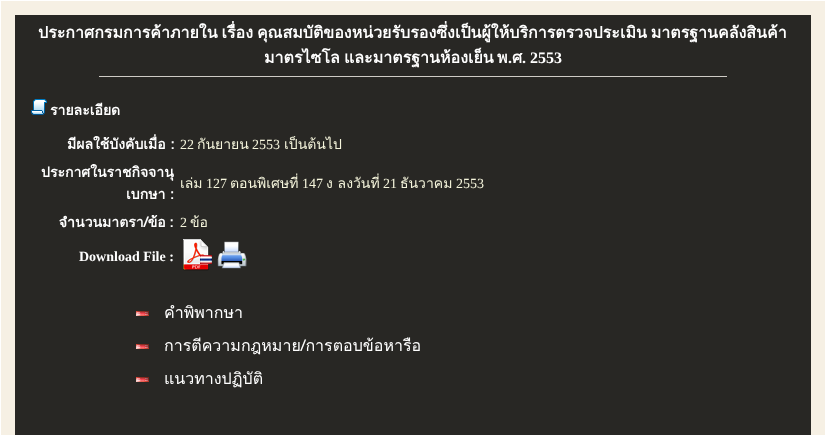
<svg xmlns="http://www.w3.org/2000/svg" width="826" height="435">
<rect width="100%" height="100%" fill="#fff"/>
<rect x="1" y="1" width="824" height="434" fill="#f6f0e4"/>
<rect x="15" y="15" width="796" height="420" fill="#282724"/>
<text x="38" y="38" word-spacing="-1.5" style="font-family:Loma;font-size:16px;font-weight:bold;fill:#fff">ประกาศกรมการค้าภายใน เรื่อง คุณสมบัติของหน่วยรับรองซึ่งเป็นผู้ให้บริการตรวจประเมิน มาตรฐานคลังสินค้า</text>
<text x="264" y="63" style="font-family:Loma;font-size:16px;font-weight:bold;fill:#fff">มาตรไซโล</text>
<text x="344" y="63" style="font-family:Loma;font-size:16px;font-weight:bold;fill:#fff">และมาตรฐานห้องเย็น</text>
<text x="497" y="63" style="font-family:Loma;font-size:16px;font-weight:bold;fill:#fff">พ</text>
<text x="508" y="63" style="font-family:Liberation Serif;font-size:16px;font-weight:bold;fill:#fff">.</text>
<text x="512" y="63" style="font-family:Loma;font-size:16px;font-weight:bold;fill:#fff">ศ</text>
<text x="522" y="63" style="font-family:Liberation Serif;font-size:16px;font-weight:bold;fill:#fff">. 2553</text>
<rect x="99" y="76" width="628" height="1" fill="#cecbc5"/>
<image x="31" y="99" width="16" height="16" href="media/1.png"/>
<text x="50" y="115" style="font-family:Loma;font-size:14px;font-weight:bold;fill:#fff">รายละเอียด</text>
<text x="67" y="149" style="font-family:Loma;font-size:14px;font-weight:bold;fill:#fff">มีผลใช้บังคับเมื่อ :</text>
<text x="180" y="149" style="font-family:Liberation Serif;font-size:14px;fill:#f5f5dc">22</text>
<text x="197" y="149" style="font-family:Loma;font-size:14px;fill:#f5f5dc">กันยายน</text>
<text x="252" y="149" style="font-family:Liberation Serif;font-size:14px;fill:#f5f5dc">2553</text>
<text x="284" y="149" style="font-family:Loma;font-size:14px;fill:#f5f5dc">เป็นต้นไป</text>
<text x="41" y="177" style="font-family:Loma;font-size:14px;font-weight:bold;fill:#fff">ประกาศในราชกิจจานุ</text>
<text x="126" y="199" style="font-family:Loma;font-size:14px;font-weight:bold;fill:#fff">เบกษา :</text>
<text x="180" y="188" style="font-family:Loma;font-size:14px;fill:#f5f5dc">เล่ม</text>
<text x="206" y="188" style="font-family:Liberation Serif;font-size:14px;fill:#f5f5dc">127</text>
<text x="230" y="188" style="font-family:Loma;font-size:14px;fill:#f5f5dc">ตอนพิเศษที่</text>
<text x="302" y="188" style="font-family:Liberation Serif;font-size:14px;fill:#f5f5dc">147</text>
<text x="326" y="188" style="font-family:Loma;font-size:14px;fill:#f5f5dc">ง ลงวันที่</text>
<text x="383" y="188" style="font-family:Liberation Serif;font-size:14px;fill:#f5f5dc">21</text>
<text x="400" y="188" style="font-family:Loma;font-size:14px;fill:#f5f5dc">ธันวาคม</text>
<text x="456" y="188" style="font-family:Liberation Serif;font-size:14px;fill:#f5f5dc">2553</text>
<text x="59" y="227" word-spacing="-1" style="font-family:Loma;font-size:14px;font-weight:bold;fill:#fff">จำนวนมาตรา/ข้อ :</text>
<text x="180" y="227" style="font-family:Liberation Serif;font-size:14px;fill:#f5f5dc">2</text>
<text x="190" y="227" style="font-family:Loma;font-size:14px;fill:#f5f5dc">ข้อ</text>
<text x="79" y="261" style="font-family:Liberation Serif;font-size:14px;font-weight:bold;fill:#fff">Download File :</text>
<image x="183" y="239" width="29" height="32" href="media/2.png"/>
<image x="217" y="241" width="30" height="28" href="media/3.png"/>
<image x="136" y="311" width="13" height="5" href="media/4.png"/>
<text x="164" y="318" style="font-family:Loma;font-size:16px;fill:#fff">คำพิพากษา</text>
<image x="136" y="344" width="13" height="5" href="media/4.png"/>
<text x="164" y="351" style="font-family:Loma;font-size:16px;fill:#fff">การตีความกฎหมาย/การตอบข้อหารือ</text>
<image x="136" y="377" width="13" height="5" href="media/4.png"/>
<text x="164" y="384" style="font-family:Loma;font-size:16px;fill:#fff">แนวทางปฏิบัติ</text>
</svg>
